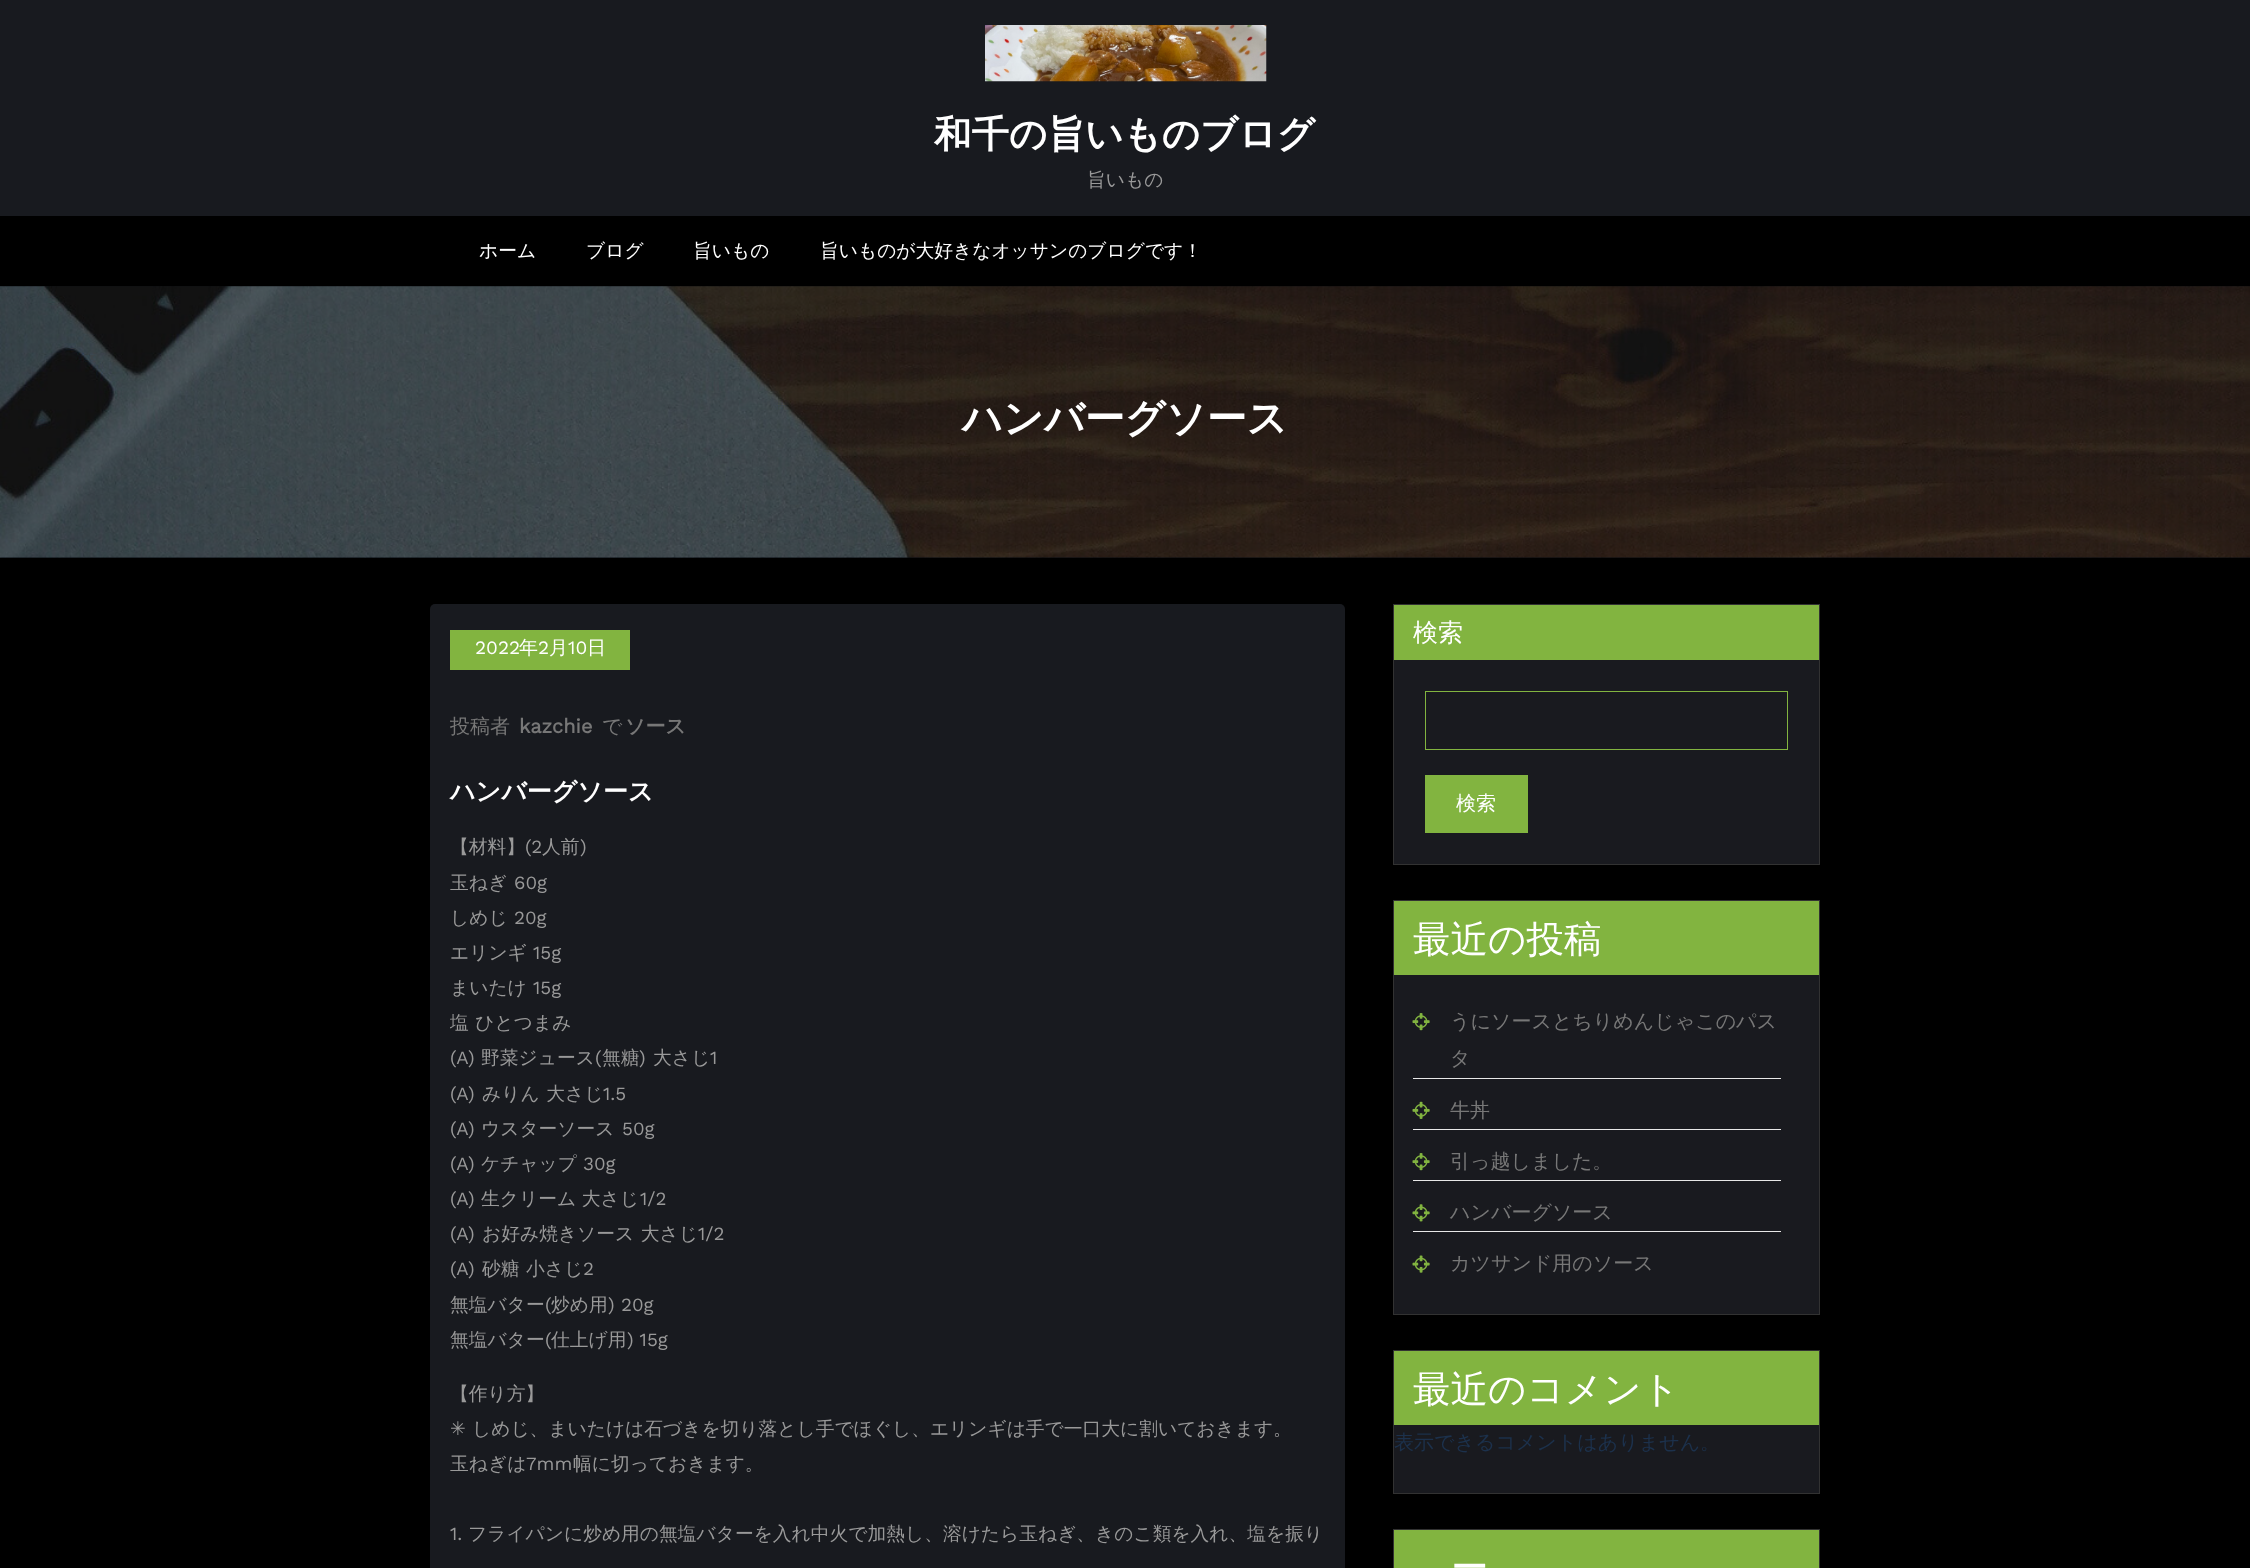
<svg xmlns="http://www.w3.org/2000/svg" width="2250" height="1568">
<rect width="100%" height="100%" fill="#000"/>
<rect width="2250" height="216" fill="#181a1f"/>
<image x="985" y="25" width="282" height="57" href="media/1.png"/>
<text x="934" y="147" style="font-family:WenQuanYi Zen Hei;font-size:37.5px;font-weight:bold;fill:#fff">和千の旨いものブログ</text>
<text x="1087" y="186" style="font-family:WenQuanYi Zen Hei;font-size:18.75px;font-weight:500;fill:#999">旨いもの</text>
<text x="479" y="257" style="font-family:WenQuanYi Zen Hei;font-size:18.75px;font-weight:500;fill:#fff">ホーム</text>
<text x="586" y="257" style="font-family:WenQuanYi Zen Hei;font-size:18.75px;font-weight:500;fill:#fff">ブログ</text>
<text x="693" y="257" style="font-family:WenQuanYi Zen Hei;font-size:18.75px;font-weight:500;fill:#fff">旨いもの</text>
<text x="820" y="257" style="font-family:WenQuanYi Zen Hei;font-size:18.75px;font-weight:500;fill:#fff">旨いものが大好きなオッサンのブログです！</text>
<rect y="286" width="2250" height="272" fill="#090d12"/>
<image x="0" y="286" width="2250" height="272" href="media/2.png"/>
<text x="962" y="432" style="font-family:WenQuanYi Zen Hei;font-size:40px;font-weight:bold;fill:#fff">ハンバーグソース</text>
<rect x="430" y="604" width="915" height="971" rx="5" fill="#181a1f" filter="blur(0.5px)"/>
<rect x="450" y="630" width="180" height="40" fill="#82b440"/>
<text x="475" y="654" style="font-family:Work Sans;font-size:19px;fill:#fff">2022</text>
<text x="519" y="654" style="font-family:WenQuanYi Zen Hei;font-size:19px;font-weight:500;fill:#fff">年</text>
<text x="538" y="654" style="font-family:Work Sans;font-size:19px;fill:#fff">2</text>
<text x="549" y="654" style="font-family:WenQuanYi Zen Hei;font-size:19px;font-weight:500;fill:#fff">月</text>
<text x="568" y="654" style="font-family:Work Sans;font-size:19px;fill:#fff">10</text>
<text x="587" y="654" style="font-family:WenQuanYi Zen Hei;font-size:19px;font-weight:500;fill:#fff">日</text>
<text x="450" y="733" style="font-family:WenQuanYi Zen Hei;font-size:20px;font-weight:500;fill:#777">投稿者</text>
<text x="519" y="733" style="font-family:Work Sans;font-size:20px;font-weight:bold;fill:#777">kazchie</text>
<text x="602" y="733" style="font-family:WenQuanYi Zen Hei;font-size:20px;font-weight:500;fill:#777">で</text>
<text x="625" y="733" style="font-family:WenQuanYi Zen Hei;font-size:20px;font-weight:bold;fill:#777">ソース</text>
<text x="450" y="800" style="font-family:WenQuanYi Zen Hei;font-size:25px;font-weight:bold;fill:#fff">ハンバーグソース</text>
<text x="450" y="853" style="font-family:WenQuanYi Zen Hei;font-size:18.75px;font-weight:500;fill:#999">【材料】</text>
<text x="525" y="853" style="font-family:Work Sans;font-size:18.75px;fill:#999">(2</text>
<text x="542" y="853" style="font-family:WenQuanYi Zen Hei;font-size:18.75px;font-weight:500;fill:#999">人前</text>
<text x="580" y="853" style="font-family:Work Sans;font-size:18.75px;fill:#999">)</text>
<text x="450" y="889" style="font-family:WenQuanYi Zen Hei;font-size:18.75px;font-weight:500;fill:#999">玉ねぎ</text>
<text x="514" y="889" style="font-family:Work Sans;font-size:18.75px;fill:#999">60g</text>
<text x="450" y="924" style="font-family:WenQuanYi Zen Hei;font-size:18.75px;font-weight:500;fill:#999">しめじ</text>
<text x="514" y="924" style="font-family:Work Sans;font-size:18.75px;fill:#999">20g</text>
<text x="450" y="959" style="font-family:WenQuanYi Zen Hei;font-size:18.75px;font-weight:500;fill:#999">エリンギ</text>
<text x="533" y="959" style="font-family:Work Sans;font-size:18.75px;fill:#999">15g</text>
<text x="450" y="994" style="font-family:WenQuanYi Zen Hei;font-size:18.75px;font-weight:500;fill:#999">まいたけ</text>
<text x="533" y="994" style="font-family:Work Sans;font-size:18.75px;fill:#999">15g</text>
<text x="450" y="1029" word-spacing="1" style="font-family:WenQuanYi Zen Hei;font-size:18.75px;font-weight:500;fill:#999">塩 ひとつまみ</text>
<text x="450" y="1064" style="font-family:Work Sans;font-size:18.75px;fill:#999">(A)</text>
<text x="481" y="1064" style="font-family:WenQuanYi Zen Hei;font-size:18.75px;font-weight:500;fill:#999">野菜ジュース</text>
<text x="595" y="1064" style="font-family:Work Sans;font-size:18.75px;fill:#999">(</text>
<text x="602" y="1064" style="font-family:WenQuanYi Zen Hei;font-size:18.75px;font-weight:500;fill:#999">無糖</text>
<text x="639" y="1064" style="font-family:Work Sans;font-size:18.75px;fill:#999">)</text>
<text x="653" y="1064" style="font-family:WenQuanYi Zen Hei;font-size:18.75px;font-weight:500;fill:#999">大さじ</text>
<text x="710" y="1064" style="font-family:Work Sans;font-size:18.75px;fill:#999">1</text>
<text x="450" y="1100" style="font-family:Work Sans;font-size:18.75px;fill:#999">(A)</text>
<text x="482" y="1100" word-spacing="1" style="font-family:WenQuanYi Zen Hei;font-size:18.75px;font-weight:500;fill:#999">みりん 大さじ</text>
<text x="603" y="1100" style="font-family:Work Sans;font-size:18.75px;fill:#999">1.5</text>
<text x="450" y="1135" style="font-family:Work Sans;font-size:18.75px;fill:#999">(A)</text>
<text x="481" y="1135" style="font-family:WenQuanYi Zen Hei;font-size:18.75px;font-weight:500;fill:#999">ウスターソース</text>
<text x="622" y="1135" style="font-family:Work Sans;font-size:18.75px;fill:#999">50g</text>
<text x="450" y="1170" style="font-family:Work Sans;font-size:18.75px;fill:#999">(A)</text>
<text x="481" y="1170" style="font-family:WenQuanYi Zen Hei;font-size:18.75px;font-weight:500;fill:#999">ケチャップ</text>
<text x="583" y="1170" style="font-family:Work Sans;font-size:18.75px;fill:#999">30g</text>
<text x="450" y="1205" style="font-family:Work Sans;font-size:18.75px;fill:#999">(A)</text>
<text x="481" y="1205" style="font-family:WenQuanYi Zen Hei;font-size:18.75px;font-weight:500;fill:#999">生クリーム 大さじ</text>
<text x="640" y="1205" style="font-family:Work Sans;font-size:18.75px;fill:#999">1/2</text>
<text x="450" y="1240" style="font-family:Work Sans;font-size:18.75px;fill:#999">(A)</text>
<text x="482" y="1240" word-spacing="1" style="font-family:WenQuanYi Zen Hei;font-size:18.75px;font-weight:500;fill:#999">お好み焼きソース 大さじ</text>
<text x="698" y="1240" style="font-family:Work Sans;font-size:18.75px;fill:#999">1/2</text>
<text x="450" y="1275" style="font-family:Work Sans;font-size:18.75px;fill:#999">(A)</text>
<text x="482" y="1275" word-spacing="1" style="font-family:WenQuanYi Zen Hei;font-size:18.75px;font-weight:500;fill:#999">砂糖 小さじ</text>
<text x="583" y="1275" style="font-family:Work Sans;font-size:18.75px;fill:#999">2</text>
<text x="450" y="1311" style="font-family:WenQuanYi Zen Hei;font-size:18.75px;font-weight:500;fill:#999">無塩バター</text>
<text x="545" y="1311" style="font-family:Work Sans;font-size:18.75px;fill:#999">(</text>
<text x="551" y="1311" style="font-family:WenQuanYi Zen Hei;font-size:18.75px;font-weight:500;fill:#999">炒め用</text>
<text x="608" y="1311" style="font-family:Work Sans;font-size:18.75px;fill:#999">) 20g</text>
<text x="450" y="1346" style="font-family:WenQuanYi Zen Hei;font-size:18.75px;font-weight:500;fill:#999">無塩バター</text>
<text x="545" y="1346" style="font-family:Work Sans;font-size:18.75px;fill:#999">(</text>
<text x="551" y="1346" style="font-family:WenQuanYi Zen Hei;font-size:18.75px;font-weight:500;fill:#999">仕上げ用</text>
<text x="627" y="1346" style="font-family:Work Sans;font-size:18.75px;fill:#999">) 15g</text>
<text x="450" y="1400" style="font-family:WenQuanYi Zen Hei;font-size:18.75px;font-weight:500;fill:#999">【作り方】</text>
<text x="450" y="1435" style="font-family:DejaVu Sans;font-size:18.75px;fill:#999">✳︎</text>
<text x="472" y="1435" style="font-family:WenQuanYi Zen Hei;font-size:18.75px;font-weight:500;fill:#999">しめじ、まいたけは石づきを切り落とし手でほぐし、エリンギは手で一口大に割いておきます。</text>
<text x="450" y="1470" style="font-family:WenQuanYi Zen Hei;font-size:18.75px;font-weight:500;fill:#999">玉ねぎは</text>
<text x="526" y="1470" style="font-family:Work Sans;font-size:18.75px;fill:#999">7mm</text>
<text x="573" y="1470" style="font-family:WenQuanYi Zen Hei;font-size:18.75px;font-weight:500;fill:#999">幅に切っておきます。</text>
<text x="450" y="1540" style="font-family:Work Sans;font-size:18.75px;fill:#999">1.</text>
<text x="468" y="1540" style="font-family:WenQuanYi Zen Hei;font-size:18.75px;font-weight:500;fill:#999">フライパンに炒め用の無塩バターを入れ中火で加熱し、溶けたら玉ねぎ、きのこ類を入れ、塩を振り</text>
<rect x="1393" y="604" width="427" height="261" fill="#323232" filter="blur(0.5px)"/>
<rect x="1394" y="660" width="425" height="204" fill="#191a1f"/>
<rect x="1394" y="605" width="425" height="55" fill="#82b440"/>
<text x="1413" y="641" style="font-family:WenQuanYi Zen Hei;font-size:25px;font-weight:500;fill:#fff">検索</text>
<rect x="1425.5" y="691.5" width="362" height="58" fill="none" stroke="#82b440"/>
<rect x="1425" y="775" width="103" height="58" fill="#82b440"/>
<text x="1456" y="810" style="font-family:WenQuanYi Zen Hei;font-size:20px;font-weight:500;fill:#fff">検索</text>
<rect x="1393" y="900" width="427" height="415" fill="#323232" filter="blur(0.5px)"/>
<rect x="1394" y="975" width="425" height="339" fill="#191a1f"/>
<rect x="1394" y="901" width="425" height="74" fill="#82b440"/>
<text x="1413" y="952" style="font-family:WenQuanYi Zen Hei;font-size:37.5px;font-weight:500;fill:#fff">最近の投稿</text>
<rect x="1413" y="1078" width="368" height="1" fill="#e8e8e8"/>
<image x="1412" y="1013" width="18" height="18" href="media/3.png"/>
<text x="1450" y="1028" style="font-family:WenQuanYi Zen Hei;font-size:20px;font-weight:500;fill:#777">うにソースとちりめんじゃこのパス</text>
<text x="1450" y="1065" style="font-family:WenQuanYi Zen Hei;font-size:20px;font-weight:500;fill:#777">タ</text>
<rect x="1413" y="1129" width="368" height="1" fill="#e8e8e8"/>
<image x="1412" y="1101" width="18" height="18" href="media/4.png"/>
<text x="1450" y="1117" style="font-family:WenQuanYi Zen Hei;font-size:20px;font-weight:500;fill:#777">牛丼</text>
<rect x="1413" y="1180" width="368" height="1" fill="#e8e8e8"/>
<image x="1412" y="1153" width="18" height="18" href="media/3.png"/>
<text x="1450" y="1168" style="font-family:WenQuanYi Zen Hei;font-size:20px;font-weight:500;fill:#777">引っ越しました。</text>
<rect x="1413" y="1231" width="368" height="1" fill="#e8e8e8"/>
<image x="1412" y="1204" width="18" height="18" href="media/5.png"/>
<text x="1450" y="1219" style="font-family:WenQuanYi Zen Hei;font-size:20px;font-weight:500;fill:#777">ハンバーグソース</text>
<image x="1412" y="1255" width="18" height="18" href="media/6.png"/>
<text x="1450" y="1270" style="font-family:WenQuanYi Zen Hei;font-size:20px;font-weight:500;fill:#777">カツサンド用のソース</text>
<rect x="1393" y="1350" width="427" height="144" fill="#323232" filter="blur(0.5px)"/>
<rect x="1394" y="1425" width="425" height="68" fill="#191a1f"/>
<rect x="1394" y="1351" width="425" height="74" fill="#82b440"/>
<text x="1413" y="1402" style="font-family:WenQuanYi Zen Hei;font-size:37.5px;font-weight:500;fill:#fff">最近のコメント</text>
<text x="1394" y="1449" style="font-family:WenQuanYi Zen Hei;font-size:20px;font-weight:500;fill:#1c314c">表示できるコメントはありません。</text>
<rect x="1393" y="1529" width="427" height="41" fill="#323232" filter="blur(0.5px)"/>
<rect x="1394" y="1530" width="425" height="38" fill="#82b440"/>
<text x="1451" y="1580" style="font-family:WenQuanYi Zen Hei;font-size:37.5px;font-weight:500;fill:#fff">ー</text>
</svg>
